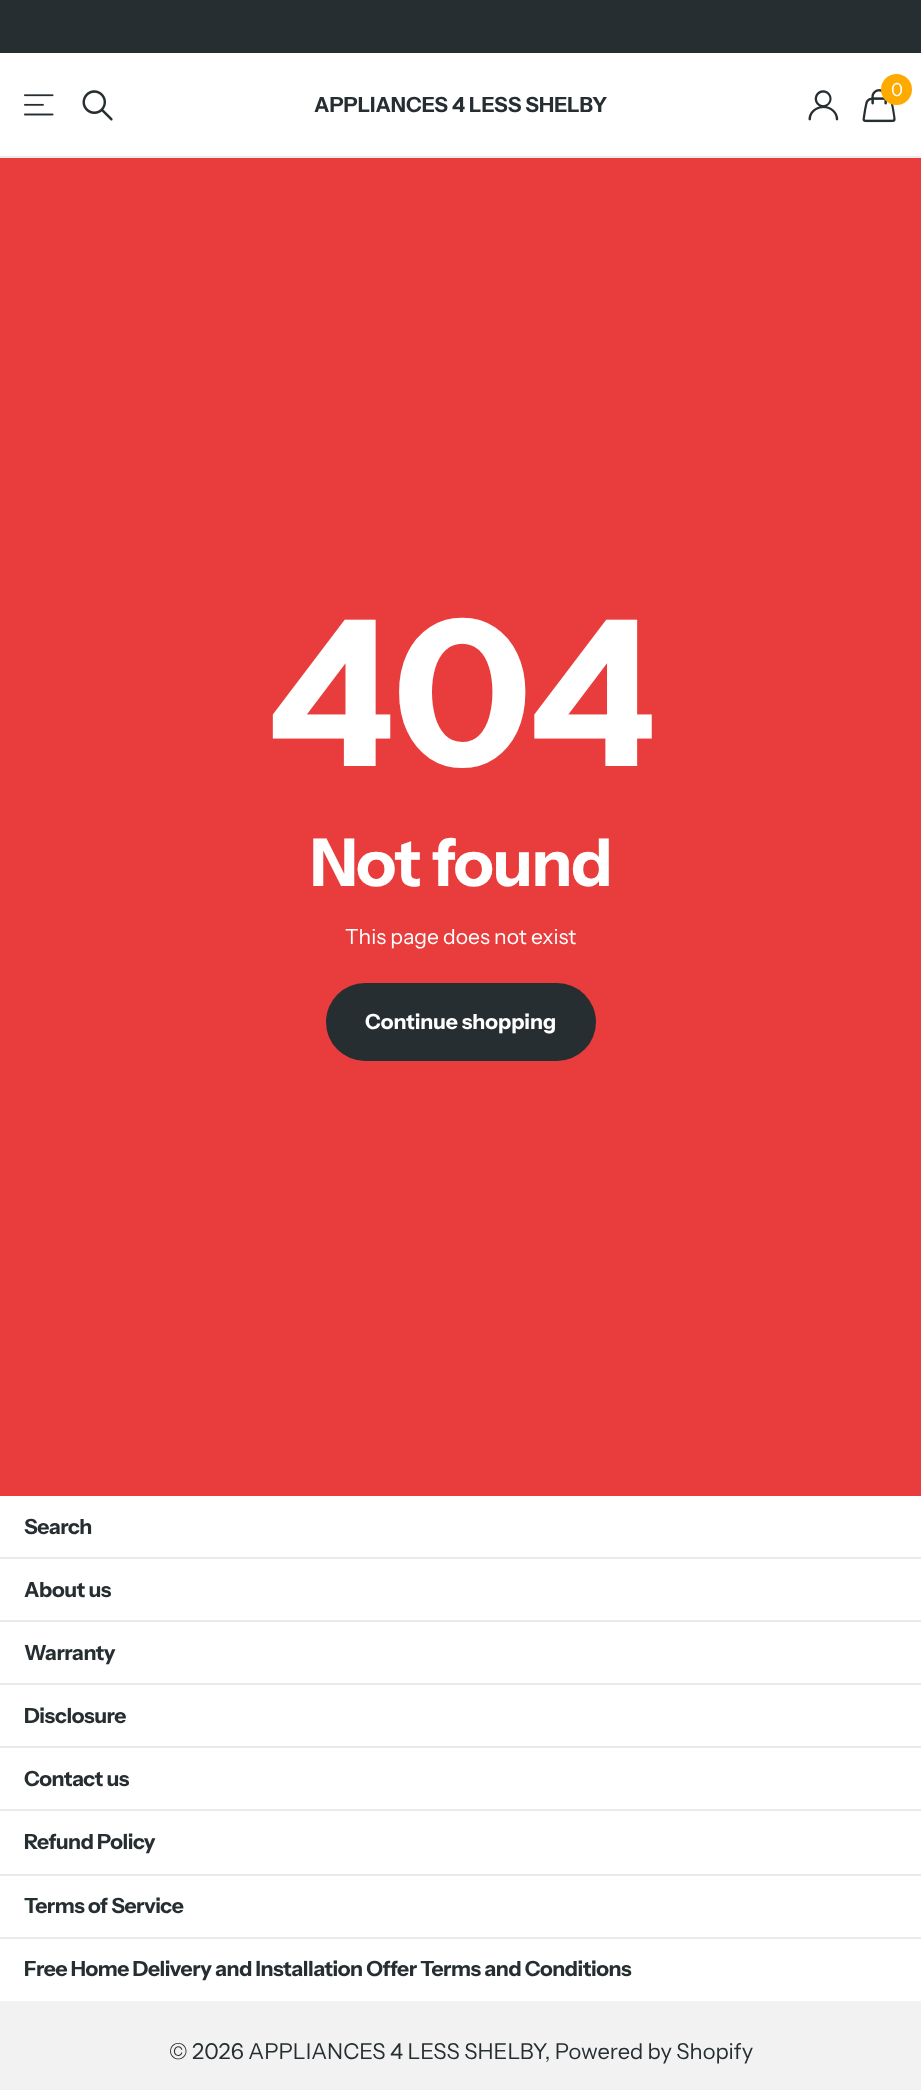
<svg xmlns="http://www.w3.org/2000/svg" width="921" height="2090">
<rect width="100%" height="100%" fill="#fff"/>
<rect width="921" height="53" fill="#262e31"/>
<image x="24" y="94" width="30" height="22" href="media/1.png"/>
<image x="82" y="90" width="31" height="31" href="media/2.png"/>
<text x="314" y="112" style="font-family:Instrument Sans;font-size:21px;font-weight:bold;fill:#262e31">APPLIANCES 4 LESS SHELBY</text>
<image x="808" y="90" width="31" height="31" href="media/3.png"/>
<image x="862" y="89" width="34" height="34" href="media/4.png"/>
<circle cx="896.5" cy="89.5" r="15.5" fill="#fa0"/>
<text x="891" y="96" style="font-family:Instrument Sans;font-size:18px;fill:#fff">0</text>
<rect y="156" width="921" height="2" fill="#ececec"/>
<rect y="158" width="921" height="1338" fill="#e93d3d"/>
<text x="268" y="766" style="font-family:Instrument Sans;font-size:203px;font-weight:bold;letter-spacing:-1.25px;fill:#fff">404</text>
<text x="310" y="886" style="font-family:Instrument Sans;font-size:66px;font-weight:bold;letter-spacing:-1.25px;fill:#fff">Not found</text>
<text x="345" y="944" style="font-family:Instrument Sans;font-size:21px;fill:#fff">This page does not exist</text>
<rect x="326" y="983" width="270" height="78" rx="39" fill="#262e31"/>
<text x="365" y="1029" style="font-family:Instrument Sans;font-size:21px;font-weight:bold;fill:#fff">Continue shopping</text>
<text x="24" y="1534" style="font-family:Instrument Sans;font-size:21px;font-weight:bold;letter-spacing:-0.42px;fill:#262e31">Search</text>
<rect y="1557" width="921" height="2" fill="#e9eaea"/>
<text x="24" y="1597" style="font-family:Instrument Sans;font-size:21px;font-weight:bold;letter-spacing:-0.42px;fill:#262e31">About us</text>
<rect y="1620" width="921" height="2" fill="#e9eaea"/>
<text x="24" y="1660" style="font-family:Instrument Sans;font-size:21px;font-weight:bold;letter-spacing:-0.42px;fill:#262e31">Warranty</text>
<rect y="1683" width="921" height="2" fill="#e9eaea"/>
<text x="24" y="1723" style="font-family:Instrument Sans;font-size:21px;font-weight:bold;letter-spacing:-0.42px;fill:#262e31">Disclosure</text>
<rect y="1746" width="921" height="2" fill="#e9eaea"/>
<text x="24" y="1786" style="font-family:Instrument Sans;font-size:21px;font-weight:bold;letter-spacing:-0.42px;fill:#262e31">Contact us</text>
<rect y="1809" width="921" height="2" fill="#e9eaea"/>
<text x="24" y="1849" style="font-family:Instrument Sans;font-size:21px;font-weight:bold;letter-spacing:-0.42px;fill:#262e31">Refund Policy</text>
<rect y="1874" width="921" height="2" fill="#e9eaea"/>
<text x="24" y="1913" style="font-family:Instrument Sans;font-size:21px;font-weight:bold;letter-spacing:-0.42px;fill:#262e31">Terms of Service</text>
<rect y="1937" width="921" height="2" fill="#e9eaea"/>
<text x="24" y="1976" style="font-family:Instrument Sans;font-size:21px;font-weight:bold;letter-spacing:-0.42px;fill:#262e31">Free Home Delivery and Installation Offer Terms and Conditions</text>
<rect y="2001" width="921" height="89" fill="#f2f2f2"/>
<text x="169" y="2059" style="font-family:Instrument Sans;font-size:21.85px;fill:#262e31">© 2026 APPLIANCES 4 LESS SHELBY, Powered by Shopify</text>
</svg>
